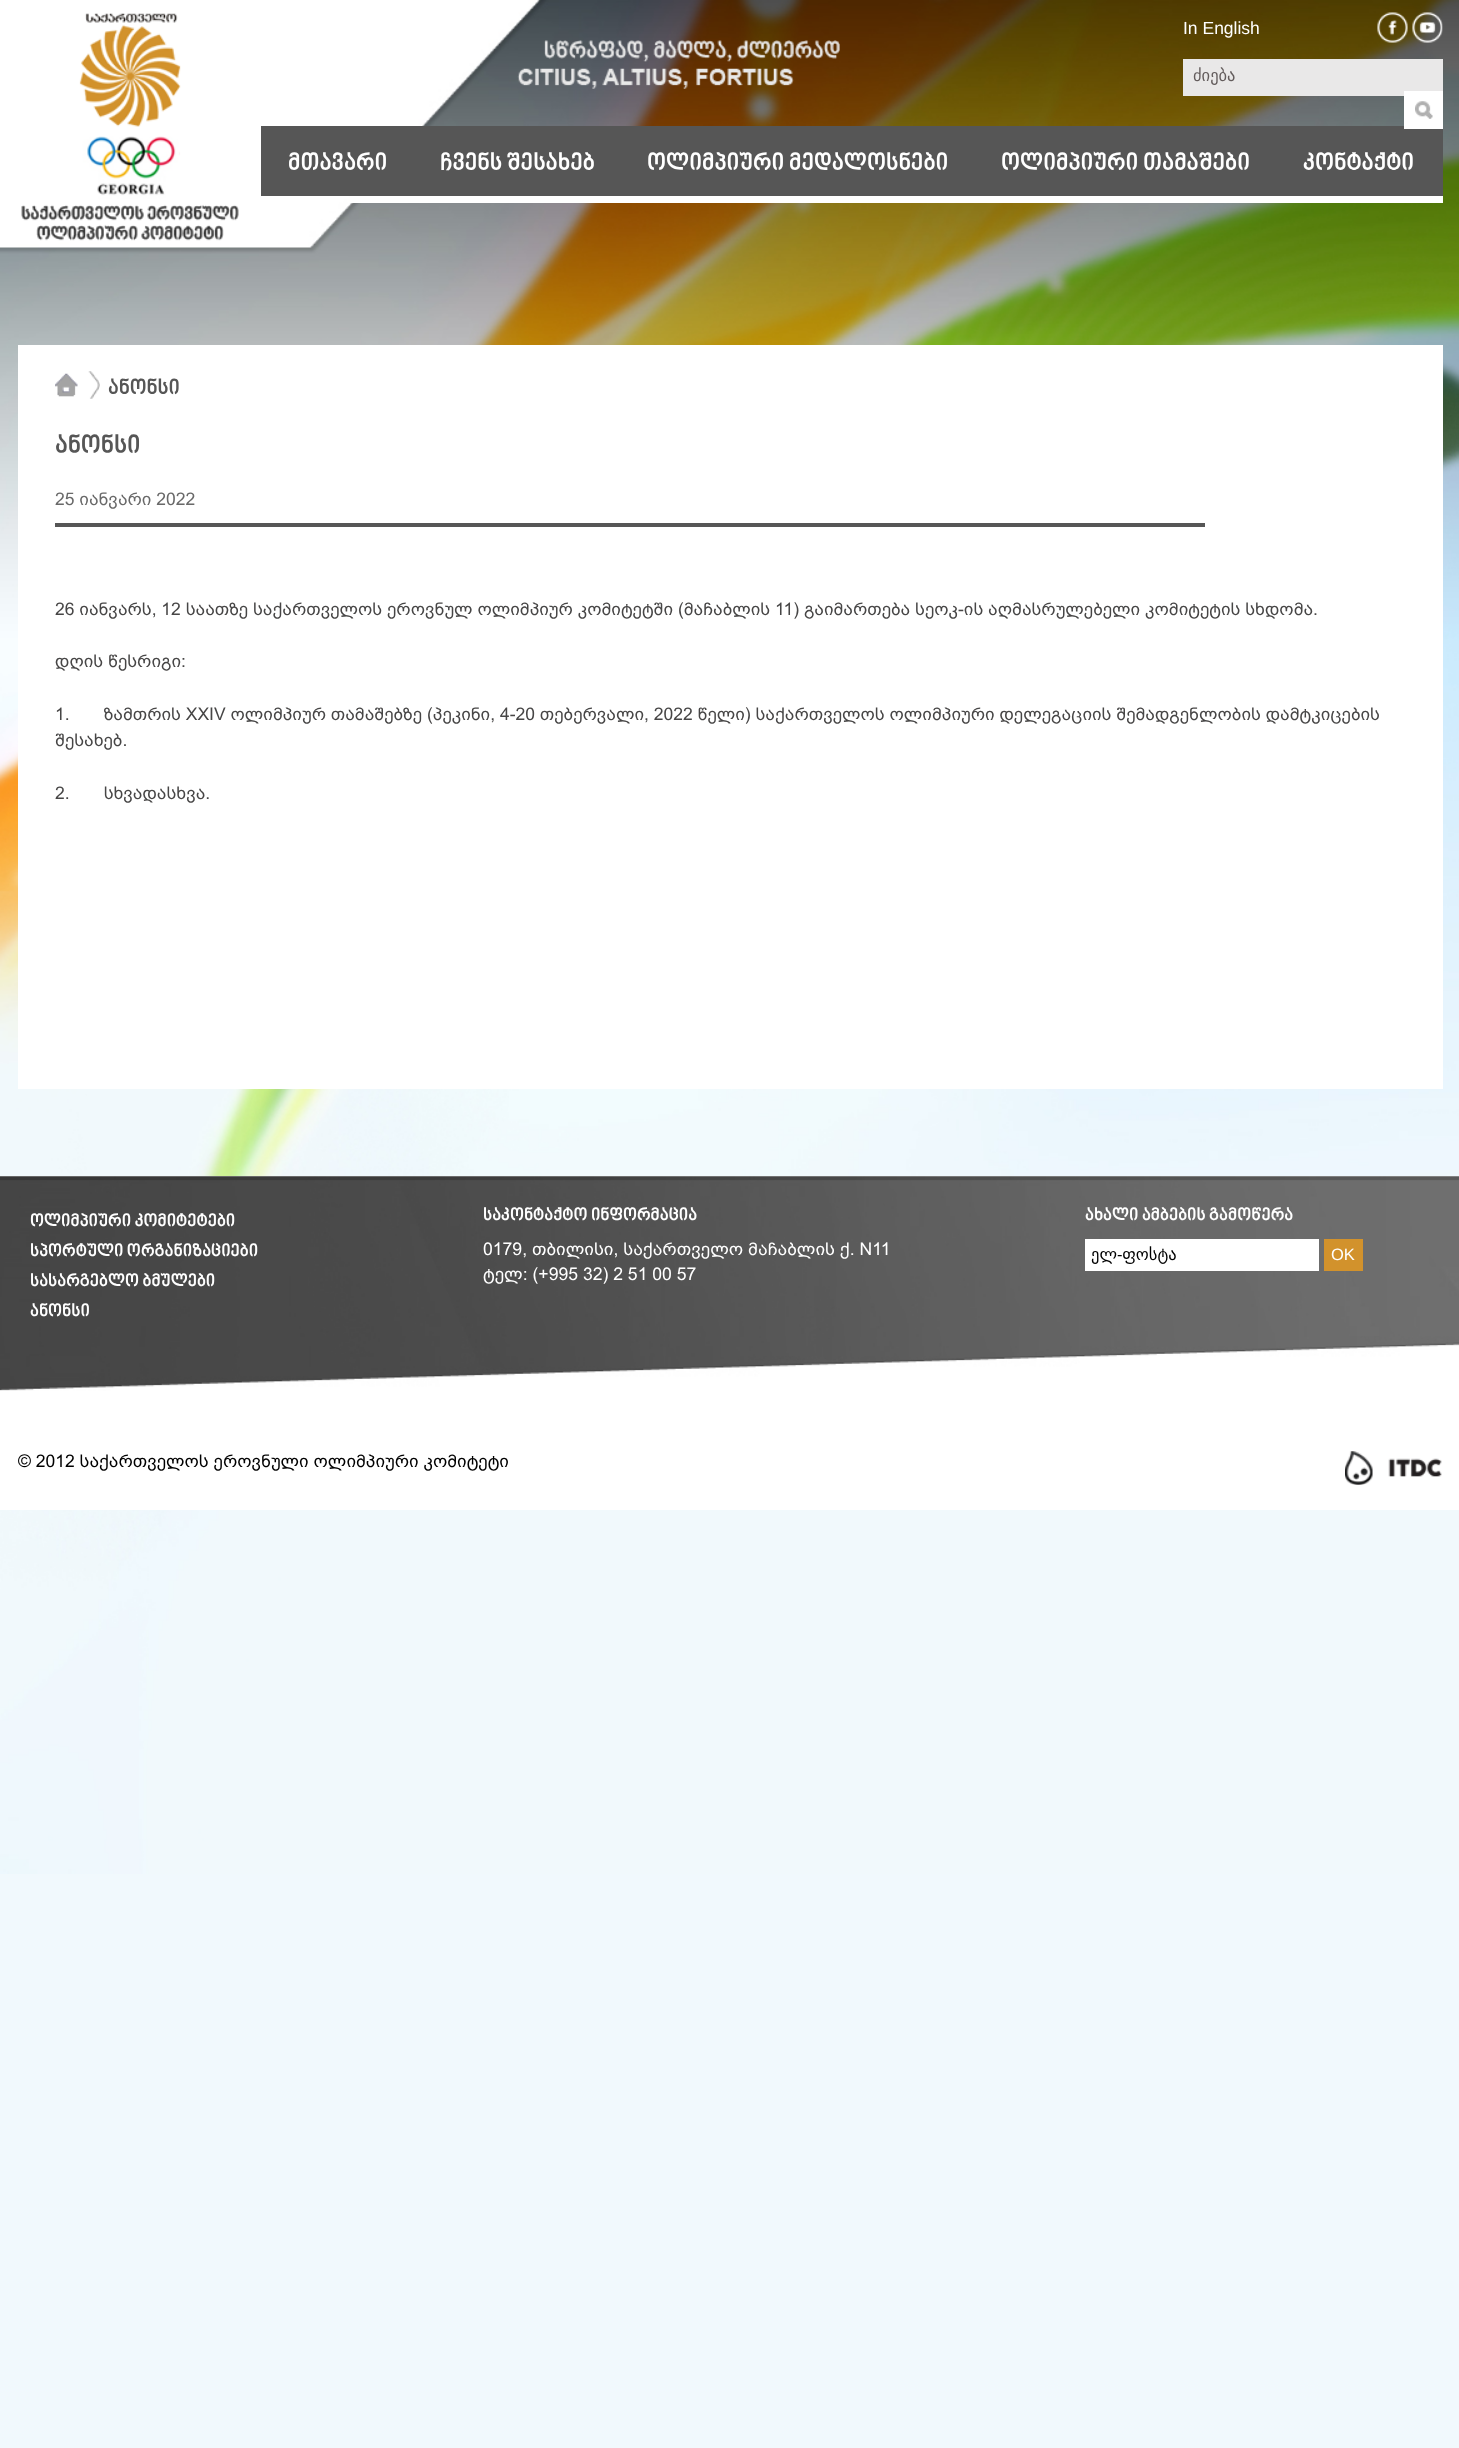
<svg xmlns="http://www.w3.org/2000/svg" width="1459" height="2448">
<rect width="100%" height="100%" fill="#f1f9fd"/>
<image x="0" y="0" width="1459" height="1874" href="media/1.png"/>
<image x="21" y="13" width="218" height="228" href="media/2.png"/>
<image x="517" y="40" width="323" height="49" href="media/3.png"/>
<text x="1183" y="34" style="font-family:Liberation Sans;font-size:17.5px;fill:#fff">In English</text>
<image x="1377" y="12" width="31" height="31" href="media/4.png"/>
<image x="1412" y="12" width="31" height="31" href="media/5.png"/>
<rect x="1183" y="59" width="260" height="37" fill="#e9e8e8"/>
<text x="1193" y="81" style="font-family:DejaVu Sans;font-size:16.5px;fill:#635c5c">ძიება</text>
<rect x="261" y="126" width="1182" height="70" fill="#565656"/>
<rect x="1404" y="91" width="39" height="38" fill="#fff"/>
<image x="1415" y="101" width="18" height="18" href="media/6.png"/>
<rect x="350" y="196" width="1093" height="7" fill="#fff"/>
<text x="288" y="171" style="font-family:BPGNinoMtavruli;font-size:23.75px;font-weight:bold;font-style:italic;fill:#fff">მთავარი</text>
<text x="440" y="171" style="font-family:BPGNinoMtavruli;font-size:23.75px;font-weight:bold;font-style:italic;fill:#fff">ჩვენს შესახებ</text>
<text x="647" y="171" style="font-family:BPGNinoMtavruli;font-size:23.75px;font-weight:bold;font-style:italic;fill:#fff">ოლიმპიური მედალოსნები</text>
<text x="1001" y="171" style="font-family:BPGNinoMtavruli;font-size:23.75px;font-weight:bold;font-style:italic;fill:#fff">ოლიმპიური თამაშები</text>
<text x="1303" y="171" style="font-family:BPGNinoMtavruli;font-size:23.75px;font-weight:bold;font-style:italic;fill:#fff">კონტაქტი</text>
<rect x="18" y="345" width="1425" height="744" fill="#fff"/>
<image x="55" y="371" width="45" height="28" href="media/7.png"/>
<text x="108" y="395" style="font-family:BPGNinoMtavruli;font-size:21px;font-weight:bold;font-style:italic;fill:#565656">ანონსი</text>
<text x="55" y="454" style="font-family:BPGNinoMtavruli;font-size:25px;font-weight:bold;font-style:italic;fill:#565656">ანონსი</text>
<rect x="55" y="523" width="1150" height="4" fill="#565656"/>
<text x="55" y="505" style="font-family:'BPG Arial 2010';font-size:17.5px;fill:#696969">25 იანვარი 2022</text>
<text x="55" y="615" style="font-family:'BPG Arial 2010';font-size:17.5px;fill:#474646">26 იანვარს, 12 საათზე საქართველოს ეროვნულ ოლიმპიურ კომიტეტში (მაჩაბლის 11) გაიმართება სეოკ-ის აღმასრულებელი კომიტეტის სხდომა.</text>
<text x="55" y="667" style="font-family:'BPG Arial 2010';font-size:17.5px;fill:#474646">დღის წესრიგი:</text>
<text x="55" y="720" style="font-family:'BPG Arial 2010';font-size:17.5px;fill:#474646" xml:space="preserve">1.       ზამთრის XXIV ოლიმპიურ თამაშებზე (პეკინი, 4-20 თებერვალი, 2022 წელი) საქართველოს ოლიმპიური დელეგაციის შემადგენლობის დამტკიცების</text>
<text x="55" y="746" style="font-family:'BPG Arial 2010';font-size:17.5px;fill:#474646">შესახებ.</text>
<text x="55" y="799" style="font-family:'BPG Arial 2010';font-size:17.5px;fill:#474646" xml:space="preserve">2.       სხვადასხვა.</text>
<rect y="1176" width="1459" height="334" fill="#fff"/>
<image x="0" y="1176" width="1459" height="215" href="media/8.png"/>
<text x="30" y="1227" style="font-family:BPGNinoMtavruli;font-size:17.5px;font-weight:bold;font-style:italic;fill:#fff">ოლიმპიური კომიტეტები</text>
<text x="30" y="1257" style="font-family:BPGNinoMtavruli;font-size:17.5px;font-weight:bold;font-style:italic;fill:#fff">სპორტული ორგანიზაციები</text>
<text x="30" y="1287" style="font-family:BPGNinoMtavruli;font-size:17.5px;font-weight:bold;font-style:italic;fill:#fff">სასარგებლო ბმულები</text>
<text x="30" y="1317" style="font-family:BPGNinoMtavruli;font-size:17.5px;font-weight:bold;font-style:italic;fill:#fff">ანონსი</text>
<text x="483" y="1221" style="font-family:BPGNinoMtavruli;font-size:17.5px;font-weight:bold;font-style:italic;fill:#fff">საკონტაქტო ინფორმაცია</text>
<text x="483" y="1255" style="font-family:'BPG Arial 2010';font-size:17.6px;fill:#fff">0179, თბილისი, საქართველო მაჩაბლის ქ. N11</text>
<text x="483" y="1280" style="font-family:'BPG Arial 2010';font-size:17.6px;fill:#fff">ტელ: (+995 32) 2 51 00 57</text>
<text x="1085" y="1221" style="font-family:BPGNinoMtavruli;font-size:17.5px;font-weight:bold;font-style:italic;fill:#fff">ახალი ამბების გამოწერა</text>
<rect x="1085" y="1239" width="234" height="32" fill="#fff"/>
<text x="1091" y="1260" style="font-family:DejaVu Sans;font-size:16.5px;fill:#000">ელ ფოსტა</text>
<text x="1117" y="1260" style="font-family:Liberation Sans;font-size:16.5px;fill:#000">-</text>
<rect x="1324" y="1239" width="39" height="32" fill="#d2922c"/>
<text x="1331" y="1260" style="font-family:Liberation Sans;font-size:16.5px;fill:#fff">OK</text>
<text x="18" y="1467" style="font-family:'BPG Arial 2010';font-size:17.5px;fill:#000">© 2012 საქართველოს ეროვნული ოლიმპიური კომიტეტი</text>
<image x="1345" y="1451" width="97" height="34" href="media/9.png"/>
</svg>
